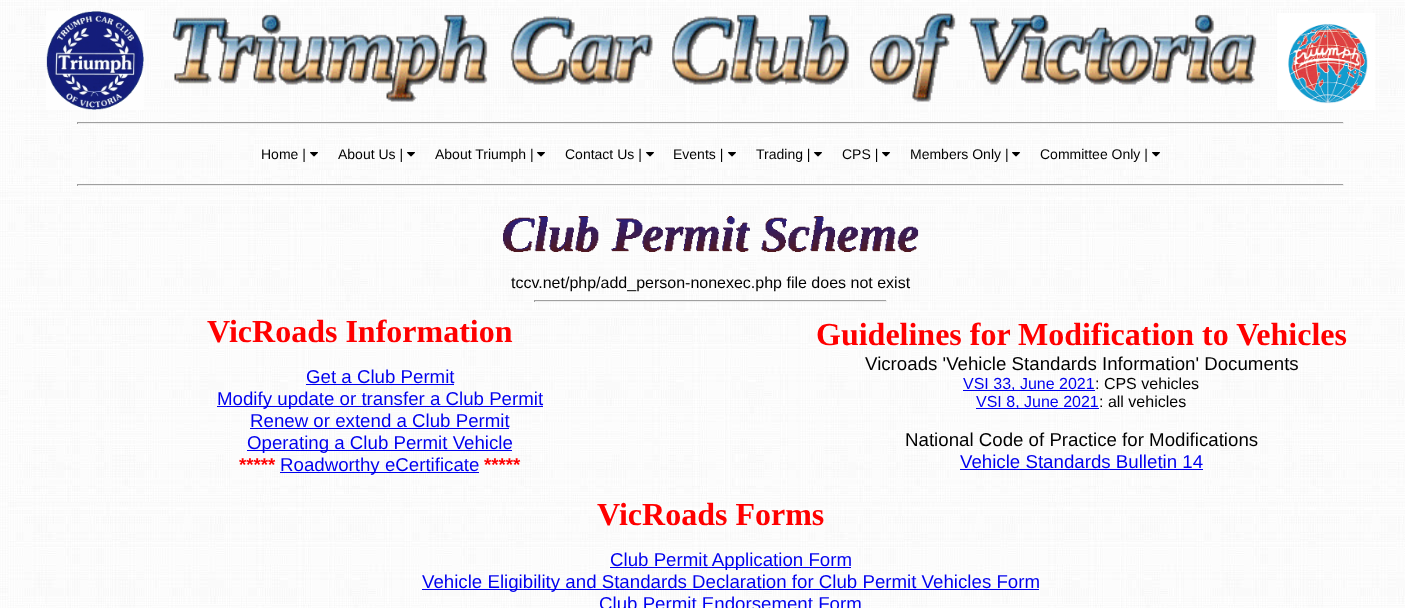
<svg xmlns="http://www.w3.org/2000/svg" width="1405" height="608">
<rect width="100%" height="100%" fill="#fff"/>
<image x="0" y="0" width="1405" height="608" href="media/1.png"/>
<image x="46" y="11" width="98" height="99" href="media/2.png"/>
<image x="172" y="13" width="1085" height="89" href="media/3.png"/>
<image x="1277" y="13" width="98" height="97" href="media/4.png"/>
<rect x="77" y="122" width="1267" height="1" fill="#9f9f9f"/>
<rect x="1343" y="122" width="1" height="2" fill="#eee"/>
<rect x="77" y="123" width="1267" height="1" fill="#eee"/>
<rect x="77" y="122" width="1" height="2" fill="#9f9f9f"/>
<image x="254" y="138" width="914" height="32" href="media/5.png"/>
<text x="261" y="159" style="font-family:Liberation Sans;font-size:14px;fill:#000">Home |</text>
<image x="310" y="152" width="8" height="5" href="media/6.png"/>
<text x="338" y="159" style="font-family:Liberation Sans;font-size:14px;fill:#000">About Us |</text>
<image x="407" y="152" width="8" height="5" href="media/7.png"/>
<text x="435" y="159" style="font-family:Liberation Sans;font-size:14px;fill:#000">About Triumph |</text>
<image x="537" y="152" width="8" height="5" href="media/8.png"/>
<text x="565" y="159" style="font-family:Liberation Sans;font-size:14px;fill:#000">Contact Us |</text>
<image x="646" y="152" width="8" height="5" href="media/9.png"/>
<text x="673" y="159" style="font-family:Liberation Sans;font-size:14px;fill:#000">Events |</text>
<image x="728" y="152" width="8" height="5" href="media/10.png"/>
<text x="756" y="159" style="font-family:Liberation Sans;font-size:14px;fill:#000">Trading |</text>
<image x="814" y="152" width="8" height="5" href="media/11.png"/>
<text x="842" y="159" style="font-family:Liberation Sans;font-size:14px;fill:#000">CPS |</text>
<image x="882" y="152" width="8" height="5" href="media/12.png"/>
<text x="910" y="159" style="font-family:Liberation Sans;font-size:14px;fill:#000">Members Only |</text>
<image x="1012" y="152" width="8" height="5" href="media/13.png"/>
<text x="1040" y="159" style="font-family:Liberation Sans;font-size:14px;fill:#000">Committee Only |</text>
<image x="1152" y="152" width="8" height="5" href="media/14.png"/>
<rect x="77" y="184" width="1267" height="1" fill="#9f9f9f"/>
<rect x="1343" y="184" width="1" height="2" fill="#eee"/>
<rect x="77" y="185" width="1267" height="1" fill="#eee"/>
<rect x="77" y="184" width="1" height="2" fill="#9f9f9f"/>
<image x="503" y="216" width="416" height="36" href="media/15.png"/>
<text x="511" y="288" style="font-family:Liberation Sans;font-size:16px;fill:#000">tccv.net/php/add_person-nonexec.php file does not exist</text>
<rect x="534" y="300" width="353" height="1" fill="#9f9f9f"/>
<rect x="886" y="300" width="1" height="2" fill="#eee"/>
<rect x="534" y="301" width="353" height="1" fill="#eee"/>
<rect x="534" y="300" width="1" height="2" fill="#9f9f9f"/>
<image x="8" y="310" width="1397" height="298" href="media/16.png"/>
<text x="207" y="342" style="font-family:Liberation Serif;font-size:32px;font-weight:bold;fill:#f00">VicRoads Information</text>
<text x="306" y="383" style="font-family:Liberation Sans;font-size:18.7px;fill:#00e">Get a Club Permit</text>
<rect x="306" y="384" width="148" height="1" fill="#00e"/>
<rect x="217" y="406" width="326" height="1" fill="#00e"/>
<text x="217" y="405" style="font-family:Liberation Sans;font-size:18.7px;fill:#00e">Modify update or transfer a Club Permit</text>
<text x="250" y="427" style="font-family:Liberation Sans;font-size:18.7px;fill:#00e">Renew or extend a Club Permit</text>
<rect x="250" y="428" width="259" height="1" fill="#00e"/>
<rect x="247" y="450" width="265" height="1" fill="#00e"/>
<text x="247" y="449" style="font-family:Liberation Sans;font-size:18.7px;fill:#00e">Operating a Club Permit Vehicle</text>
<text x="239" y="471" style="font-family:Liberation Sans;font-size:18.7px;font-weight:bold;fill:#f00">*****</text>
<rect x="280" y="472" width="199" height="1" fill="#00e"/>
<text x="280" y="471" style="font-family:Liberation Sans;font-size:18.7px;fill:#00e">Roadworthy eCertificate</text>
<text x="484" y="471" style="font-family:Liberation Sans;font-size:18.7px;font-weight:bold;fill:#f00">*****</text>
<text x="816" y="345" style="font-family:Liberation Serif;font-size:32px;font-weight:bold;fill:#f00">Guidelines for Modification to Vehicles</text>
<text x="865" y="370" style="font-family:Liberation Sans;font-size:18.7px;fill:#000">Vicroads 'Vehicle Standards Information' Documents</text>
<rect x="963" y="390" width="132" height="1" fill="#00e"/>
<text x="963" y="389" style="font-family:Liberation Sans;font-size:16px;fill:#00e">VSI 33, June 2021</text>
<text x="1095" y="389" style="font-family:Liberation Sans;font-size:16px;fill:#000">: CPS vehicles</text>
<rect x="976" y="408" width="123" height="1" fill="#00e"/>
<text x="976" y="407" style="font-family:Liberation Sans;font-size:16px;fill:#00e">VSI 8, June 2021</text>
<text x="1099" y="407" style="font-family:Liberation Sans;font-size:16px;fill:#000">: all vehicles</text>
<text x="905" y="446" style="font-family:Liberation Sans;font-size:18.7px;fill:#000">National Code of Practice for Modifications</text>
<text x="960" y="468" style="font-family:Liberation Sans;font-size:18.7px;fill:#00e">Vehicle Standards Bulletin 14</text>
<rect x="960" y="469" width="243" height="1" fill="#00e"/>
<text x="597" y="525" style="font-family:Liberation Serif;font-size:32px;font-weight:bold;fill:#f00">VicRoads Forms</text>
<rect x="610" y="567" width="241" height="1" fill="#00e"/>
<text x="610" y="566" style="font-family:Liberation Sans;font-size:18.7px;fill:#00e">Club Permit Application Form</text>
<rect x="422" y="589" width="617" height="1" fill="#00e"/>
<text x="422" y="588" style="font-family:Liberation Sans;font-size:18.7px;fill:#00e">Vehicle Eligibility and Standards Declaration for Club Permit Vehicles Form</text>
<text x="599" y="610" style="font-family:Liberation Sans;font-size:18.7px;fill:#00e">Club Permit Endorsement Form</text>
</svg>
